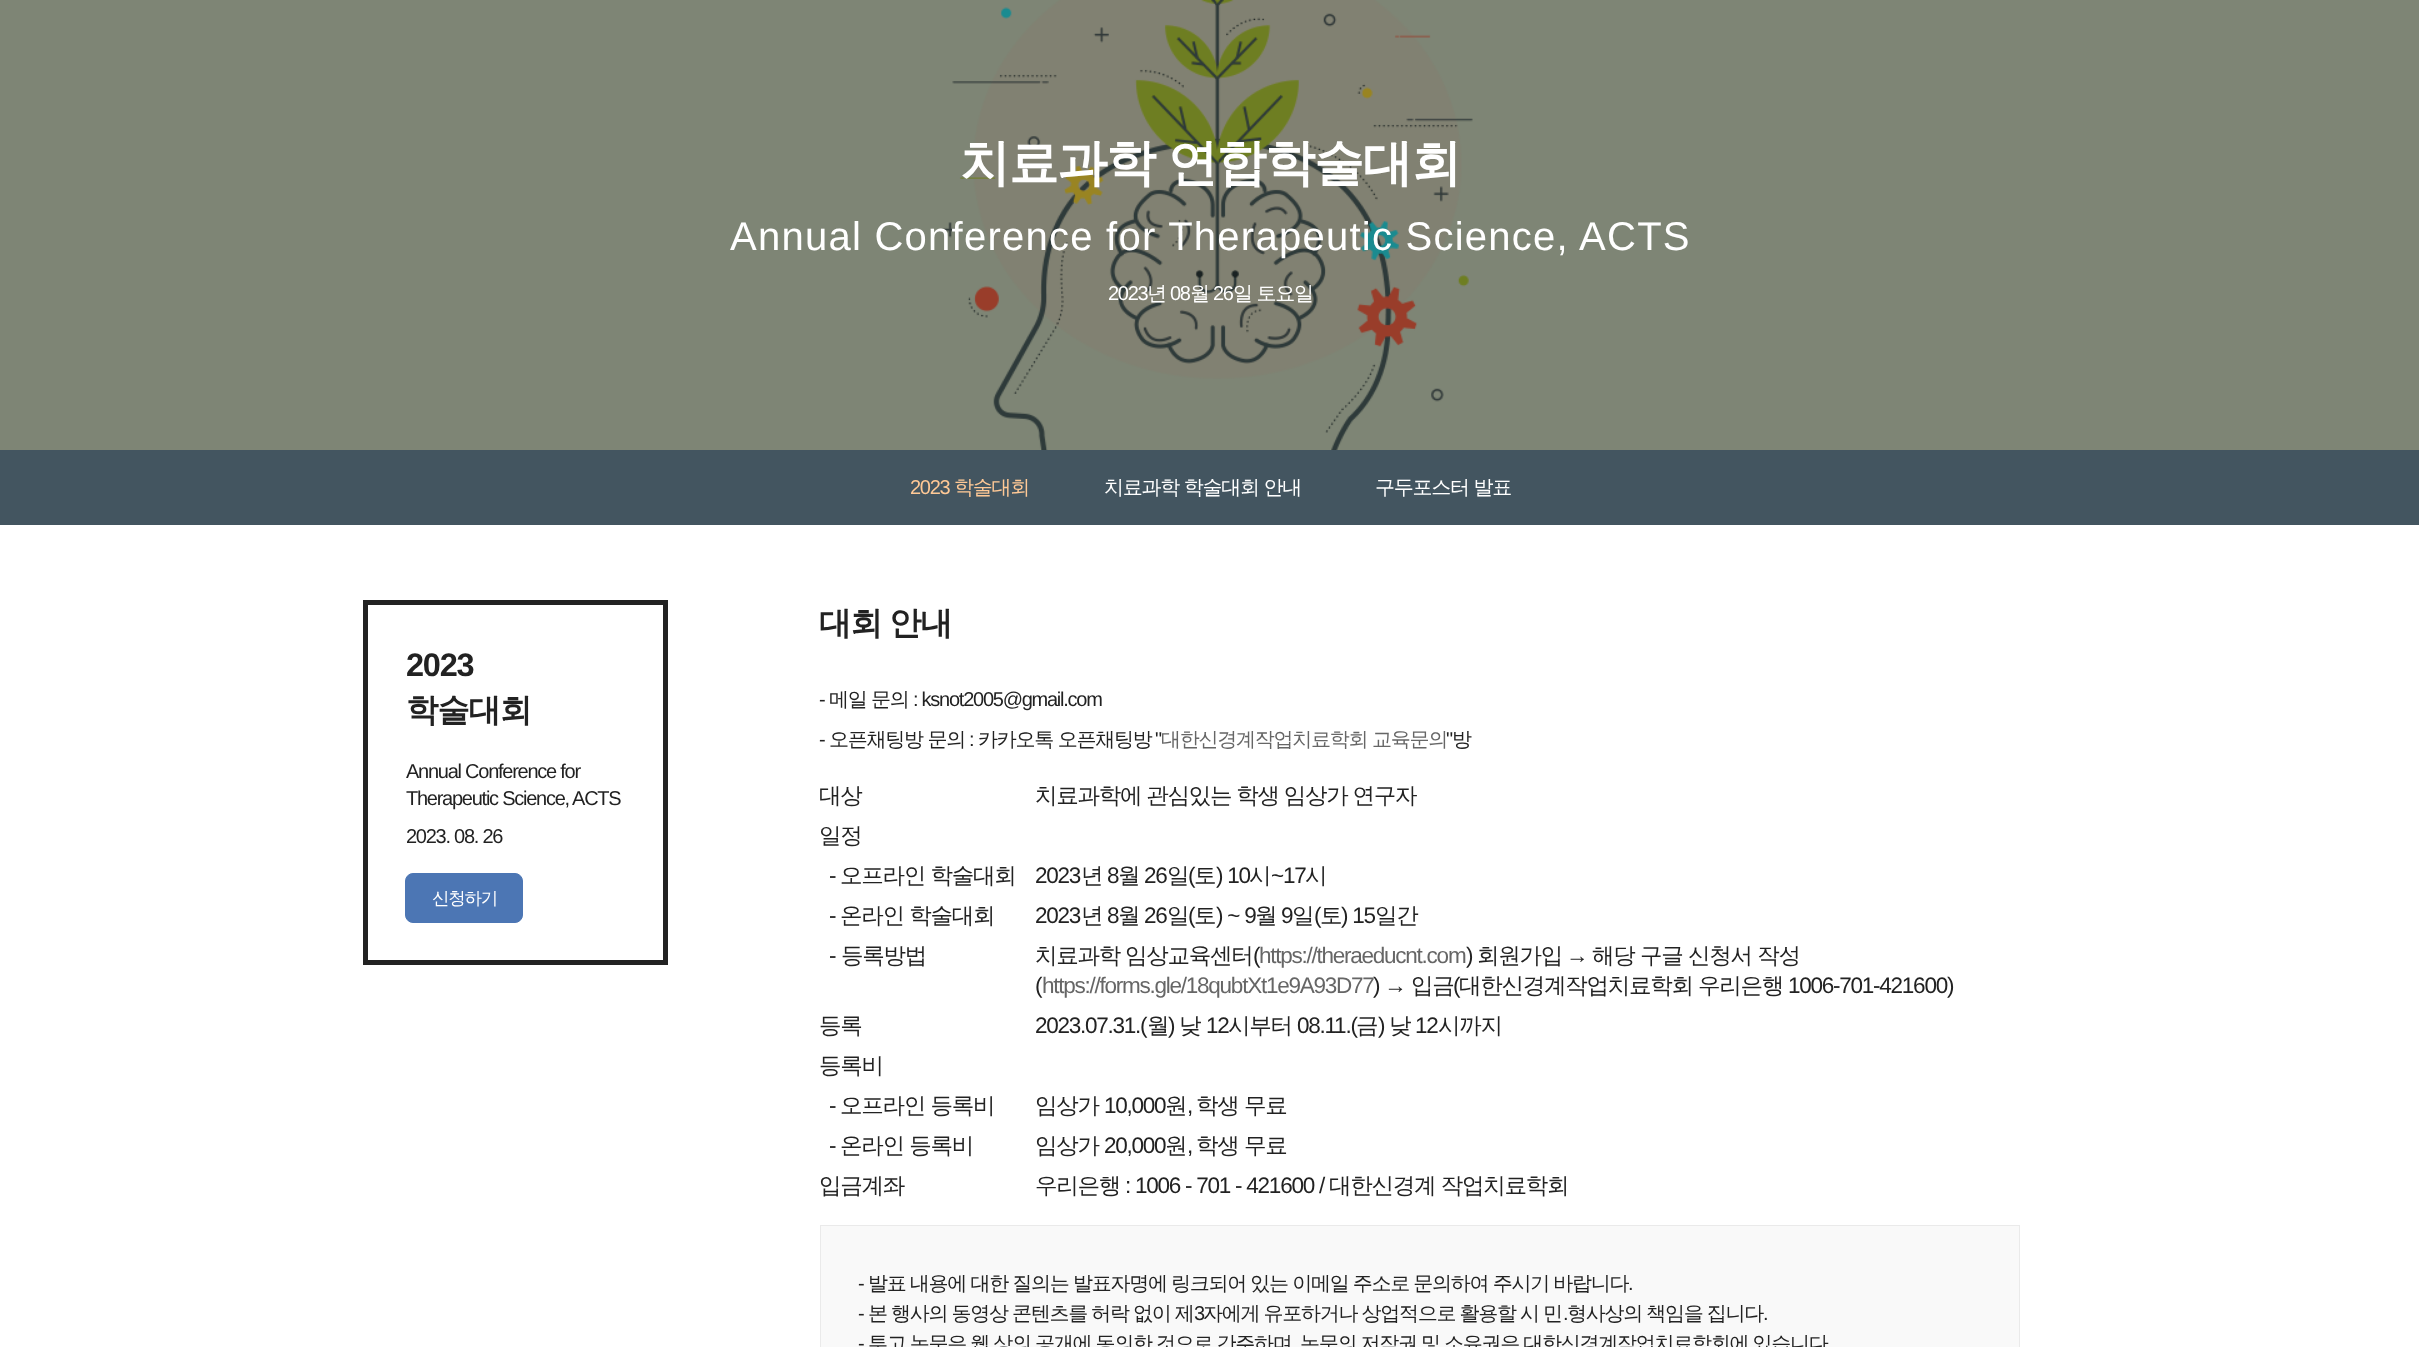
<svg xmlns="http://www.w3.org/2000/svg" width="2419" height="1347">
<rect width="100%" height="100%" fill="#7e8575"/>
<image x="942" y="0" width="531" height="450" href="media/1.png"/>
<text x="960" y="180" word-spacing="-1" style="font-family:WenQuanYi Zen Hei;font-size:50px;font-weight:bold;letter-spacing:-1.25px;fill:#fff">치료과학 연합학술대회</text>
<text x="730" y="250" style="font-family:Liberation Sans;font-size:40px;letter-spacing:1.25px;fill:#fff">Annual Conference for Therapeutic Science, ACTS</text>
<text x="1108" y="300" style="font-family:Liberation Sans;font-size:20px;letter-spacing:-1.25px;fill:#fff">2023</text>
<text x="1147" y="300" style="font-family:WenQuanYi Zen Hei;font-size:20px;font-weight:500;letter-spacing:-1.25px;fill:#fff">년</text>
<text x="1170" y="300" style="font-family:Liberation Sans;font-size:20px;letter-spacing:-1.25px;fill:#fff">08</text>
<text x="1190" y="300" style="font-family:WenQuanYi Zen Hei;font-size:20px;font-weight:500;letter-spacing:-1.25px;fill:#fff">월</text>
<text x="1213" y="300" style="font-family:Liberation Sans;font-size:20px;letter-spacing:-1.25px;fill:#fff">26</text>
<text x="1233" y="300" style="font-family:WenQuanYi Zen Hei;font-size:20px;font-weight:500;letter-spacing:-1.25px;fill:#fff">일 토요일</text>
<rect y="450" width="2419" height="75" fill="#435560"/>
<text x="910" y="494" style="font-family:Liberation Sans;font-size:20px;letter-spacing:-1.25px;fill:#ffc996">2023</text>
<text x="954" y="494" style="font-family:WenQuanYi Zen Hei;font-size:20px;font-weight:500;letter-spacing:-1.25px;fill:#ffc996">학술대회</text>
<text x="1104" y="494" style="font-family:WenQuanYi Zen Hei;font-size:20px;font-weight:500;letter-spacing:-1.25px;fill:#fff">치료과학 학술대회 안내</text>
<text x="1375" y="494" style="font-family:WenQuanYi Zen Hei;font-size:20px;font-weight:500;letter-spacing:-1.25px;fill:#fff">구두포스터 발표</text>
<rect y="525" width="2419" height="822" fill="#fff"/>
<rect x="365.5" y="602.5" width="300" height="360" fill="none" stroke="#222" stroke-width="5"/>
<text x="406" y="676" style="font-family:Liberation Sans;font-size:32.5px;font-weight:bold;letter-spacing:-1.25px;fill:#222">2023</text>
<text x="406" y="721" style="font-family:WenQuanYi Zen Hei;font-size:32.5px;font-weight:bold;letter-spacing:-1.25px;fill:#222">학술대회</text>
<text x="406" y="778" style="font-family:Liberation Sans;font-size:20px;letter-spacing:-1.25px;fill:#222">Annual Conference for</text>
<text x="406" y="805" style="font-family:Liberation Sans;font-size:20px;letter-spacing:-1.25px;fill:#222">Therapeutic Science, ACTS</text>
<text x="406" y="843" style="font-family:Liberation Sans;font-size:20px;letter-spacing:-1.25px;fill:#222">2023. 08. 26</text>
<rect x="405.5" y="873.5" width="117" height="49" rx="7.5" fill="#4c76b4" stroke="#4c76b4"/>
<text x="432" y="904" style="font-family:WenQuanYi Zen Hei;font-size:17.5px;font-weight:500;letter-spacing:-1.25px;fill:#fff">신청하기</text>
<text x="819" y="634" word-spacing="-1" style="font-family:WenQuanYi Zen Hei;font-size:32.5px;font-weight:bold;letter-spacing:-1.25px;fill:#222">대회 안내</text>
<text x="819" y="706" style="font-family:Liberation Sans;font-size:20px;letter-spacing:-1.25px;fill:#222">-</text>
<text x="829" y="706" style="font-family:WenQuanYi Zen Hei;font-size:20px;font-weight:500;letter-spacing:-1.25px;fill:#222">메일</text>
<text x="871" y="706" style="font-family:WenQuanYi Zen Hei;font-size:20px;font-weight:500;letter-spacing:-1.25px;fill:#222">문의</text>
<text x="913" y="706" style="font-family:Liberation Sans;font-size:20px;letter-spacing:-1.25px;fill:#222">: ksnot2005@gmail.com</text>
<text x="829" y="746" style="font-family:WenQuanYi Zen Hei;font-size:20px;font-weight:500;letter-spacing:-1.25px;fill:#222">오픈채팅방 문의</text>
<text x="978" y="746" style="font-family:WenQuanYi Zen Hei;font-size:20px;font-weight:500;letter-spacing:-1.25px;fill:#222">카카오톡 오픈채팅방</text>
<text x="1155" y="746" style="font-family:Liberation Sans;font-size:20px;letter-spacing:-1.25px;fill:#222">"</text>
<text x="1161" y="746" style="font-family:WenQuanYi Zen Hei;font-size:20px;font-weight:500;letter-spacing:-1.25px;fill:#666">대한신경계작업치료학회 교육문의</text>
<text x="1446" y="746" style="font-family:Liberation Sans;font-size:20px;letter-spacing:-1.25px;fill:#222">"</text>
<text x="1452" y="746" style="font-family:WenQuanYi Zen Hei;font-size:20px;font-weight:500;letter-spacing:-1.25px;fill:#222">방</text>
<text x="819" y="746" style="font-family:Liberation Sans;font-size:20px;letter-spacing:-1.25px;fill:#222">-</text>
<text x="969" y="746" style="font-family:Liberation Sans;font-size:20px;letter-spacing:-1.25px;fill:#222">:</text>
<text x="819" y="803" style="font-family:WenQuanYi Zen Hei;font-size:22.5px;font-weight:500;letter-spacing:-1.25px;fill:#222">대상</text>
<text x="1035" y="803" word-spacing="-0.5" style="font-family:WenQuanYi Zen Hei;font-size:22.5px;font-weight:500;letter-spacing:-1.25px;fill:#222">치료과학에 관심있는 학생 임상가 연구자</text>
<text x="819" y="843" style="font-family:WenQuanYi Zen Hei;font-size:22.5px;font-weight:500;letter-spacing:-1.25px;fill:#222">일정</text>
<text x="829" y="883" style="font-family:Liberation Sans;font-size:22.5px;letter-spacing:-1.25px;fill:#222">-</text>
<text x="840" y="883" style="font-family:WenQuanYi Zen Hei;font-size:22.5px;font-weight:500;letter-spacing:-1.25px;fill:#222">오프라인 학술대회</text>
<text x="1035" y="883" style="font-family:Liberation Sans;font-size:22.5px;letter-spacing:-1.25px;fill:#222">2023</text>
<text x="1081" y="883" style="font-family:WenQuanYi Zen Hei;font-size:22.5px;font-weight:500;letter-spacing:-1.25px;fill:#222">년</text>
<text x="1107" y="883" style="font-family:Liberation Sans;font-size:22.5px;letter-spacing:-1.25px;fill:#222">8</text>
<text x="1118" y="883" style="font-family:WenQuanYi Zen Hei;font-size:22.5px;font-weight:500;letter-spacing:-1.25px;fill:#222">월</text>
<text x="1144" y="883" style="font-family:Liberation Sans;font-size:22.5px;letter-spacing:-1.25px;fill:#222">26</text>
<text x="1167" y="883" style="font-family:WenQuanYi Zen Hei;font-size:22.5px;font-weight:500;letter-spacing:-1.25px;fill:#222">일</text>
<text x="1188" y="883" style="font-family:Liberation Sans;font-size:22.5px;letter-spacing:-1.25px;fill:#222">(</text>
<text x="1194" y="883" style="font-family:WenQuanYi Zen Hei;font-size:22.5px;font-weight:500;letter-spacing:-1.25px;fill:#222">토</text>
<text x="1216" y="883" style="font-family:Liberation Sans;font-size:22.5px;letter-spacing:-1.25px;fill:#222">) 10</text>
<text x="1249" y="883" style="font-family:WenQuanYi Zen Hei;font-size:22.5px;font-weight:500;letter-spacing:-1.25px;fill:#222">시</text>
<text x="1271" y="883" style="font-family:Liberation Sans;font-size:22.5px;letter-spacing:-1.25px;fill:#222">~17</text>
<text x="1305" y="883" style="font-family:WenQuanYi Zen Hei;font-size:22.5px;font-weight:500;letter-spacing:-1.25px;fill:#222">시</text>
<text x="829" y="923" style="font-family:Liberation Sans;font-size:22.5px;letter-spacing:-1.25px;fill:#222">-</text>
<text x="840" y="923" style="font-family:WenQuanYi Zen Hei;font-size:22.5px;font-weight:500;letter-spacing:-1.25px;fill:#222">온라인 학술대회</text>
<text x="1035" y="923" style="font-family:Liberation Sans;font-size:22.5px;letter-spacing:-1.25px;fill:#222">2023</text>
<text x="1081" y="923" style="font-family:WenQuanYi Zen Hei;font-size:22.5px;font-weight:500;letter-spacing:-1.25px;fill:#222">년</text>
<text x="1107" y="923" style="font-family:Liberation Sans;font-size:22.5px;letter-spacing:-1.25px;fill:#222">8</text>
<text x="1118" y="923" style="font-family:WenQuanYi Zen Hei;font-size:22.5px;font-weight:500;letter-spacing:-1.25px;fill:#222">월</text>
<text x="1144" y="923" style="font-family:Liberation Sans;font-size:22.5px;letter-spacing:-1.25px;fill:#222">26</text>
<text x="1167" y="923" style="font-family:WenQuanYi Zen Hei;font-size:22.5px;font-weight:500;letter-spacing:-1.25px;fill:#222">일</text>
<text x="1188" y="923" style="font-family:Liberation Sans;font-size:22.5px;letter-spacing:-1.25px;fill:#222">(</text>
<text x="1194" y="923" style="font-family:WenQuanYi Zen Hei;font-size:22.5px;font-weight:500;letter-spacing:-1.25px;fill:#222">토</text>
<text x="1216" y="923" style="font-family:Liberation Sans;font-size:22.5px;letter-spacing:-1.25px;fill:#222">) ~ 9</text>
<text x="1255" y="923" style="font-family:WenQuanYi Zen Hei;font-size:22.5px;font-weight:500;letter-spacing:-1.25px;fill:#222">월</text>
<text x="1281" y="923" style="font-family:Liberation Sans;font-size:22.5px;letter-spacing:-1.25px;fill:#222">9</text>
<text x="1292" y="923" style="font-family:WenQuanYi Zen Hei;font-size:22.5px;font-weight:500;letter-spacing:-1.25px;fill:#222">일</text>
<text x="1314" y="923" style="font-family:Liberation Sans;font-size:22.5px;letter-spacing:-1.25px;fill:#222">(</text>
<text x="1320" y="923" style="font-family:WenQuanYi Zen Hei;font-size:22.5px;font-weight:500;letter-spacing:-1.25px;fill:#222">토</text>
<text x="1341" y="923" style="font-family:Liberation Sans;font-size:22.5px;letter-spacing:-1.25px;fill:#222">) 15</text>
<text x="1375" y="923" style="font-family:WenQuanYi Zen Hei;font-size:22.5px;font-weight:500;letter-spacing:-1.25px;fill:#222">일간</text>
<text x="829" y="963" style="font-family:Liberation Sans;font-size:22.5px;letter-spacing:-1.25px;fill:#222">-</text>
<text x="841" y="963" style="font-family:WenQuanYi Zen Hei;font-size:22.5px;font-weight:500;letter-spacing:-1.25px;fill:#222">등록방법</text>
<text x="1035" y="963" word-spacing="-0.5" style="font-family:WenQuanYi Zen Hei;font-size:22.5px;font-weight:500;letter-spacing:-1.25px;fill:#222">치료과학 임상교육센터</text>
<text x="1253" y="963" style="font-family:Liberation Sans;font-size:22.5px;letter-spacing:-1.25px;fill:#222">(</text>
<text x="1259" y="963" style="font-family:Liberation Sans;font-size:22.5px;letter-spacing:-1.25px;fill:#666">https://theraeducnt.com</text>
<text x="1466" y="963" style="font-family:Liberation Sans;font-size:22.5px;letter-spacing:-1.25px;fill:#222">)</text>
<text x="1477" y="963" style="font-family:WenQuanYi Zen Hei;font-size:22.5px;font-weight:500;letter-spacing:-1.25px;fill:#222">회원가입</text>
<text x="1566" y="963" style="font-family:Liberation Sans;font-size:22.5px;letter-spacing:-1.25px;fill:#222">→</text>
<text x="1592" y="963" style="font-family:WenQuanYi Zen Hei;font-size:22.5px;font-weight:500;letter-spacing:-1.25px;fill:#222">해당 구글 신청서 작성</text>
<text x="1035" y="993" style="font-family:Liberation Sans;font-size:22.5px;letter-spacing:-1.25px;fill:#222">(</text>
<text x="1042" y="993" style="font-family:Liberation Sans;font-size:22.5px;letter-spacing:-1.25px;fill:#666">https://forms.gle/18qubtXt1e9A93D77</text>
<text x="1373" y="993" style="font-family:Liberation Sans;font-size:22.5px;letter-spacing:-1.25px;fill:#222">) →</text>
<text x="1411" y="993" style="font-family:WenQuanYi Zen Hei;font-size:22.5px;font-weight:500;letter-spacing:-1.25px;fill:#222">입금</text>
<text x="1453" y="993" style="font-family:Liberation Sans;font-size:22.5px;letter-spacing:-1.25px;fill:#222">(</text>
<text x="1459" y="993" style="font-family:WenQuanYi Zen Hei;font-size:22.5px;font-weight:500;letter-spacing:-1.25px;fill:#222">대한신경계작업치료학회</text>
<text x="1698" y="993" style="font-family:WenQuanYi Zen Hei;font-size:22.5px;font-weight:500;letter-spacing:-1.25px;fill:#222">우리은행</text>
<text x="1788" y="993" style="font-family:Liberation Sans;font-size:22.5px;letter-spacing:-1.25px;fill:#222">1006-701-421600)</text>
<text x="819" y="1033" style="font-family:WenQuanYi Zen Hei;font-size:22.5px;font-weight:500;letter-spacing:-1.25px;fill:#222">등록</text>
<text x="1035" y="1033" style="font-family:Liberation Sans;font-size:22.5px;letter-spacing:-1.25px;fill:#222">2023.07.31.(</text>
<text x="1147" y="1033" style="font-family:WenQuanYi Zen Hei;font-size:22.5px;font-weight:500;letter-spacing:-1.25px;fill:#222">월</text>
<text x="1168" y="1033" style="font-family:Liberation Sans;font-size:22.5px;letter-spacing:-1.25px;fill:#222">)</text>
<text x="1179" y="1033" style="font-family:WenQuanYi Zen Hei;font-size:22.5px;font-weight:500;letter-spacing:-1.25px;fill:#222">낮</text>
<text x="1206" y="1033" style="font-family:Liberation Sans;font-size:22.5px;letter-spacing:-1.25px;fill:#222">12</text>
<text x="1228" y="1033" style="font-family:WenQuanYi Zen Hei;font-size:22.5px;font-weight:500;letter-spacing:-1.25px;fill:#222">시부터</text>
<text x="1297" y="1033" style="font-family:Liberation Sans;font-size:22.5px;letter-spacing:-1.25px;fill:#222">08.11.(</text>
<text x="1356" y="1033" style="font-family:WenQuanYi Zen Hei;font-size:22.5px;font-weight:500;letter-spacing:-1.25px;fill:#222">금</text>
<text x="1378" y="1033" style="font-family:Liberation Sans;font-size:22.5px;letter-spacing:-1.25px;fill:#222">)</text>
<text x="1389" y="1033" style="font-family:WenQuanYi Zen Hei;font-size:22.5px;font-weight:500;letter-spacing:-1.25px;fill:#222">낮</text>
<text x="1415" y="1033" style="font-family:Liberation Sans;font-size:22.5px;letter-spacing:-1.25px;fill:#222">12</text>
<text x="1438" y="1033" style="font-family:WenQuanYi Zen Hei;font-size:22.5px;font-weight:500;letter-spacing:-1.25px;fill:#222">시까지</text>
<text x="819" y="1073" style="font-family:WenQuanYi Zen Hei;font-size:22.5px;font-weight:500;letter-spacing:-1.25px;fill:#222">등록비</text>
<text x="829" y="1113" style="font-family:Liberation Sans;font-size:22.5px;letter-spacing:-1.25px;fill:#222">-</text>
<text x="840" y="1113" style="font-family:WenQuanYi Zen Hei;font-size:22.5px;font-weight:500;letter-spacing:-1.25px;fill:#222">오프라인 등록비</text>
<text x="1035" y="1113" style="font-family:WenQuanYi Zen Hei;font-size:22.5px;font-weight:500;letter-spacing:-1.25px;fill:#222">임상가</text>
<text x="1104" y="1113" style="font-family:Liberation Sans;font-size:22.5px;letter-spacing:-1.25px;fill:#222">10,000</text>
<text x="1165" y="1113" style="font-family:WenQuanYi Zen Hei;font-size:22.5px;font-weight:500;letter-spacing:-1.25px;fill:#222">원</text>
<text x="1187" y="1113" style="font-family:Liberation Sans;font-size:22.5px;letter-spacing:-1.25px;fill:#222">,</text>
<text x="1196" y="1113" style="font-family:WenQuanYi Zen Hei;font-size:22.5px;font-weight:500;letter-spacing:-1.25px;fill:#222">학생 무료</text>
<text x="829" y="1153" style="font-family:Liberation Sans;font-size:22.5px;letter-spacing:-1.25px;fill:#222">-</text>
<text x="840" y="1153" style="font-family:WenQuanYi Zen Hei;font-size:22.5px;font-weight:500;letter-spacing:-1.25px;fill:#222">온라인 등록비</text>
<text x="1035" y="1153" style="font-family:WenQuanYi Zen Hei;font-size:22.5px;font-weight:500;letter-spacing:-1.25px;fill:#222">임상가</text>
<text x="1104" y="1153" style="font-family:Liberation Sans;font-size:22.5px;letter-spacing:-1.25px;fill:#222">20,000</text>
<text x="1165" y="1153" style="font-family:WenQuanYi Zen Hei;font-size:22.5px;font-weight:500;letter-spacing:-1.25px;fill:#222">원</text>
<text x="1187" y="1153" style="font-family:Liberation Sans;font-size:22.5px;letter-spacing:-1.25px;fill:#222">,</text>
<text x="1196" y="1153" style="font-family:WenQuanYi Zen Hei;font-size:22.5px;font-weight:500;letter-spacing:-1.25px;fill:#222">학생 무료</text>
<text x="819" y="1193" style="font-family:WenQuanYi Zen Hei;font-size:22.5px;font-weight:500;letter-spacing:-1.25px;fill:#222">입금계좌</text>
<text x="1035" y="1193" style="font-family:WenQuanYi Zen Hei;font-size:22.5px;font-weight:500;letter-spacing:-1.25px;fill:#222">우리은행</text>
<text x="1125" y="1193" style="font-family:Liberation Sans;font-size:22.5px;letter-spacing:-1.25px;fill:#222">: 1006 - 701 - 421600 /</text>
<text x="1329" y="1193" style="font-family:WenQuanYi Zen Hei;font-size:22.5px;font-weight:500;letter-spacing:-1.25px;fill:#222">대한신경계 작업치료학회</text>
<rect x="820.5" y="1225.5" width="1199" height="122" fill="#f9f9f9" stroke="#eaeaea"/>
<text x="858" y="1290" style="font-family:Liberation Sans;font-size:20px;letter-spacing:-1.25px;fill:#222">-</text>
<text x="868" y="1290" word-spacing="-0.4" style="font-family:WenQuanYi Zen Hei;font-size:20px;font-weight:500;letter-spacing:-1.25px;fill:#222">발표 내용에 대한 질의는 발표자명에 링크되어 있는 이메일 주소로 문의하여 주시기 바랍니다</text>
<text x="1628" y="1290" style="font-family:Liberation Sans;font-size:20px;letter-spacing:-1.25px;fill:#222">.</text>
<text x="858" y="1320" style="font-family:Liberation Sans;font-size:20px;letter-spacing:-1.25px;fill:#222">-</text>
<text x="868" y="1320" word-spacing="-0.5" style="font-family:WenQuanYi Zen Hei;font-size:20px;font-weight:500;letter-spacing:-1.25px;fill:#222">본 행사의 동영상 콘텐츠를 허락 없이 제</text>
<text x="1194" y="1320" style="font-family:Liberation Sans;font-size:20px;letter-spacing:-1.25px;fill:#222">3</text>
<text x="1203" y="1320" word-spacing="-0.5" style="font-family:WenQuanYi Zen Hei;font-size:20px;font-weight:500;letter-spacing:-1.25px;fill:#222">자에게 유포하거나 상업적으로 활용할 시 민</text>
<text x="1567" y="1320" word-spacing="-0.5" style="font-family:WenQuanYi Zen Hei;font-size:20px;font-weight:500;letter-spacing:-1.25px;fill:#222">형사상의 책임을 집니다</text>
<text x="1563" y="1320" style="font-family:Liberation Sans;font-size:20px;letter-spacing:-1.25px;fill:#222">.</text>
<text x="1763" y="1320" style="font-family:Liberation Sans;font-size:20px;letter-spacing:-1.25px;fill:#222">.</text>
<text x="858" y="1350" style="font-family:Liberation Sans;font-size:20px;letter-spacing:-1.25px;fill:#222">-</text>
<text x="868" y="1350" word-spacing="-0.5" style="font-family:WenQuanYi Zen Hei;font-size:20px;font-weight:500;letter-spacing:-1.25px;fill:#222">투고 논문은 웹 상의 공개에 동의한 것으로 간주하며</text>
<text x="1300" y="1350" word-spacing="-0.5" style="font-family:WenQuanYi Zen Hei;font-size:20px;font-weight:500;letter-spacing:-1.25px;fill:#222">논문의 저작권 및 소유권은 대한신경계작업치료학회에 있습니다</text>
</svg>
